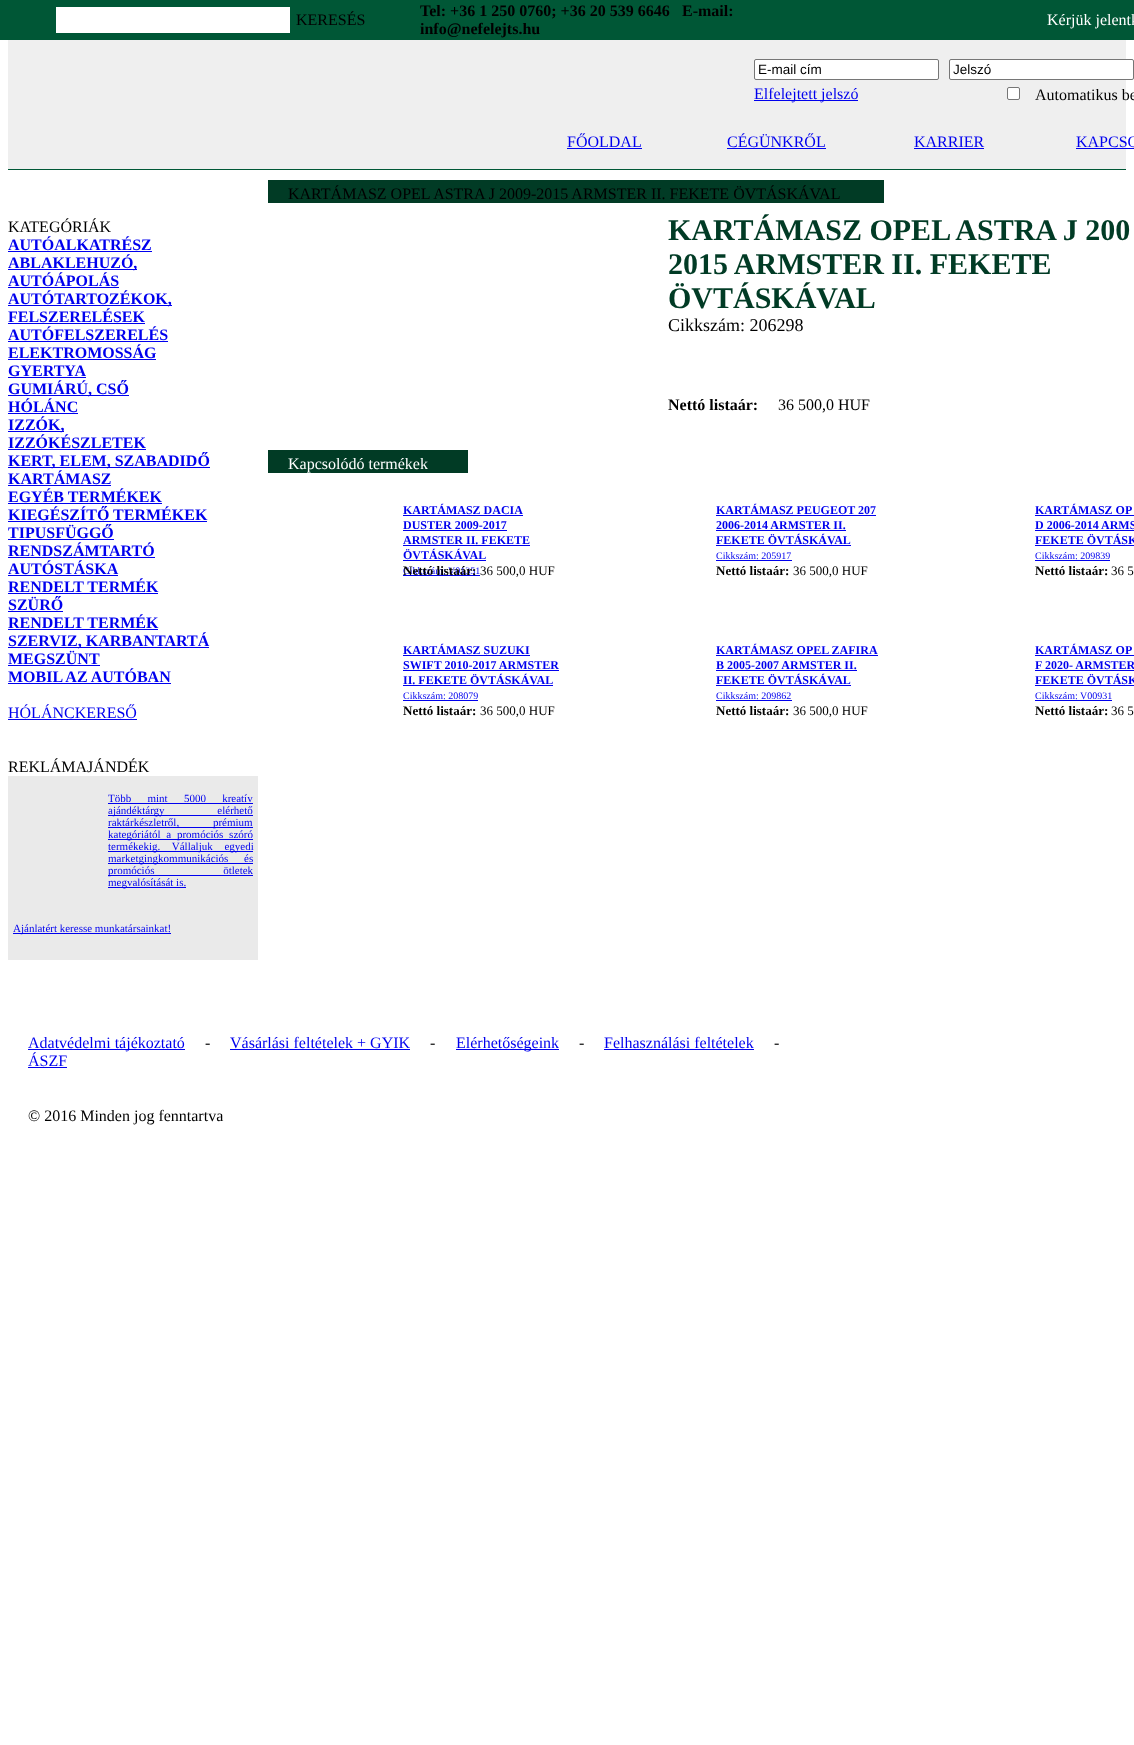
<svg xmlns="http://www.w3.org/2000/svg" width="1134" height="1745">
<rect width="100%" height="100%" fill="#fff"/>
<rect width="1134" height="40" fill="#005736"/>
<rect x="56" y="7" width="234" height="26" fill="#fff"/>
<text x="296" y="25" style="font-family:Liberation Serif;font-size:16px;fill:#000">KERESÉS</text>
<text x="420" y="16" style="font-family:Liberation Serif;font-size:16px;font-weight:bold;fill:#000">Tel: +36 1 250 0760; +36 20 539 6646</text>
<text x="682" y="16" style="font-family:Liberation Serif;font-size:16px;font-weight:bold;fill:#000">E-mail:</text>
<text x="420" y="34" style="font-family:Liberation Serif;font-size:16px;font-weight:bold;fill:#000">info@nefelejts.hu</text>
<text x="1047" y="25" style="font-family:Liberation Serif;font-size:16px;fill:#fff">Kérjük jelentk</text>
<rect x="8" y="40" width="1118" height="129" fill="#efefef"/>
<rect x="8" y="169" width="1118" height="1" fill="#005736"/>
<rect x="754.5" y="59.5" width="184" height="20" rx="1.5" fill="#fff" stroke="#767676"/>
<text x="758" y="74" style="font-family:Liberation Sans;font-size:13.5px;fill:#000">E-mail cím</text>
<rect x="949.5" y="59.5" width="184" height="20" rx="1.5" fill="#fff" stroke="#767676"/>
<text x="953" y="74" style="font-family:Liberation Sans;font-size:13.5px;fill:#000">Jelszó</text>
<rect x="754" y="100" width="104" height="1" fill="#00e"/>
<text x="754" y="99" style="font-family:Liberation Serif;font-size:16px;fill:#00e">Elfelejtett jelszó</text>
<rect x="1007.5" y="87.5" width="12" height="12" rx="1.5" fill="#fff" stroke="#767676"/>
<text x="1035" y="100" style="font-family:Liberation Serif;font-size:16px;fill:#000">Automatikus be</text>
<text x="567" y="147" style="font-family:Liberation Serif;font-size:16px;fill:#00e">FŐOLDAL</text>
<rect x="567" y="148" width="75" height="1" fill="#00e"/>
<text x="727" y="147" style="font-family:Liberation Serif;font-size:16px;fill:#00e">CÉGÜNKRŐL</text>
<rect x="727" y="148" width="99" height="1" fill="#00e"/>
<text x="914" y="147" style="font-family:Liberation Serif;font-size:16px;fill:#00e">KARRIER</text>
<rect x="914" y="148" width="70" height="1" fill="#00e"/>
<text x="1076" y="147" style="font-family:Liberation Serif;font-size:16px;fill:#00e">KAPCSO</text>
<rect x="1076" y="148" width="58" height="1" fill="#00e"/>
<text x="8" y="232" style="font-family:Liberation Serif;font-size:16px;fill:#000">KATEGÓRIÁK</text>
<text x="8" y="250" style="font-family:Liberation Serif;font-size:16px;font-weight:bold;fill:#00e">AUTÓALKATRÉSZ</text>
<rect x="8" y="251" width="144" height="1" fill="#00e"/>
<rect x="8" y="269" width="129" height="1" fill="#00e"/>
<text x="8" y="268" style="font-family:Liberation Serif;font-size:16px;font-weight:bold;fill:#00e">ABLAKLEHUZÓ,</text>
<text x="8" y="286" style="font-family:Liberation Serif;font-size:16px;font-weight:bold;fill:#00e">AUTÓÁPOLÁS</text>
<rect x="8" y="287" width="111" height="1" fill="#00e"/>
<rect x="8" y="305" width="164" height="1" fill="#00e"/>
<text x="8" y="304" style="font-family:Liberation Serif;font-size:16px;font-weight:bold;fill:#00e">AUTÓTARTOZÉKOK,</text>
<text x="8" y="322" style="font-family:Liberation Serif;font-size:16px;font-weight:bold;fill:#00e">FELSZERELÉSEK</text>
<rect x="8" y="323" width="137" height="1" fill="#00e"/>
<text x="8" y="340" style="font-family:Liberation Serif;font-size:16px;font-weight:bold;fill:#00e">AUTÓFELSZERELÉS</text>
<rect x="8" y="341" width="160" height="1" fill="#00e"/>
<text x="8" y="358" style="font-family:Liberation Serif;font-size:16px;font-weight:bold;fill:#00e">ELEKTROMOSSÁG</text>
<rect x="8" y="359" width="148" height="1" fill="#00e"/>
<text x="8" y="376" style="font-family:Liberation Serif;font-size:16px;font-weight:bold;fill:#00e">GYERTYA</text>
<rect x="8" y="377" width="78" height="1" fill="#00e"/>
<rect x="8" y="395" width="121" height="1" fill="#00e"/>
<text x="8" y="394" style="font-family:Liberation Serif;font-size:16px;font-weight:bold;fill:#00e">GUMIÁRÚ, CSŐ</text>
<text x="8" y="412" style="font-family:Liberation Serif;font-size:16px;font-weight:bold;fill:#00e">HÓLÁNC</text>
<rect x="8" y="413" width="70" height="1" fill="#00e"/>
<rect x="8" y="431" width="56" height="1" fill="#00e"/>
<text x="8" y="430" style="font-family:Liberation Serif;font-size:16px;font-weight:bold;fill:#00e">IZZÓK,</text>
<text x="8" y="448" style="font-family:Liberation Serif;font-size:16px;font-weight:bold;fill:#00e">IZZÓKÉSZLETEK</text>
<rect x="8" y="449" width="138" height="1" fill="#00e"/>
<rect x="8" y="467" width="202" height="1" fill="#00e"/>
<text x="8" y="466" style="font-family:Liberation Serif;font-size:16px;font-weight:bold;fill:#00e">KERT, ELEM, SZABADIDŐ</text>
<text x="8" y="484" style="font-family:Liberation Serif;font-size:16px;font-weight:bold;fill:#00e">KARTÁMASZ</text>
<rect x="8" y="485" width="103" height="1" fill="#00e"/>
<text x="8" y="502" style="font-family:Liberation Serif;font-size:16px;font-weight:bold;fill:#00e">EGYÉB TERMÉKEK</text>
<rect x="8" y="503" width="154" height="1" fill="#00e"/>
<text x="8" y="520" style="font-family:Liberation Serif;font-size:16px;font-weight:bold;fill:#00e">KIEGÉSZÍTŐ TERMÉKEK</text>
<rect x="8" y="521" width="199" height="1" fill="#00e"/>
<text x="8" y="538" style="font-family:Liberation Serif;font-size:16px;font-weight:bold;fill:#00e">TIPUSFÜGGŐ</text>
<rect x="8" y="539" width="106" height="1" fill="#00e"/>
<text x="8" y="556" style="font-family:Liberation Serif;font-size:16px;font-weight:bold;fill:#00e">RENDSZÁMTARTÓ</text>
<rect x="8" y="557" width="147" height="1" fill="#00e"/>
<text x="8" y="574" style="font-family:Liberation Serif;font-size:16px;font-weight:bold;fill:#00e">AUTÓSTÁSKA</text>
<rect x="8" y="575" width="110" height="1" fill="#00e"/>
<text x="8" y="592" style="font-family:Liberation Serif;font-size:16px;font-weight:bold;fill:#00e">RENDELT TERMÉK</text>
<rect x="8" y="593" width="150" height="1" fill="#00e"/>
<text x="8" y="610" style="font-family:Liberation Serif;font-size:16px;font-weight:bold;fill:#00e">SZÜRŐ</text>
<rect x="8" y="611" width="55" height="1" fill="#00e"/>
<text x="8" y="628" style="font-family:Liberation Serif;font-size:16px;font-weight:bold;fill:#00e">RENDELT TERMÉK</text>
<rect x="8" y="629" width="150" height="1" fill="#00e"/>
<rect x="8" y="647" width="201" height="1" fill="#00e"/>
<text x="8" y="646" style="font-family:Liberation Serif;font-size:16px;font-weight:bold;fill:#00e">SZERVIZ, KARBANTARTÁ</text>
<text x="8" y="664" style="font-family:Liberation Serif;font-size:16px;font-weight:bold;fill:#00e">MEGSZÜNT</text>
<rect x="8" y="665" width="92" height="1" fill="#00e"/>
<text x="8" y="682" style="font-family:Liberation Serif;font-size:16px;font-weight:bold;fill:#00e">MOBIL AZ AUTÓBAN</text>
<rect x="8" y="683" width="163" height="1" fill="#00e"/>
<text x="8" y="718" style="font-family:Liberation Serif;font-size:16px;fill:#00e">HÓLÁNCKERESŐ</text>
<rect x="8" y="719" width="129" height="1" fill="#00e"/>
<text x="8" y="772" style="font-family:Liberation Serif;font-size:16px;fill:#000">REKLÁMAJÁNDÉK</text>
<rect x="8" y="776" width="250" height="184" fill="#eaeaea"/>
<text x="108" y="802" word-spacing="13.5" style="font-family:Liberation Serif;font-size:11px;fill:#00e">Több mint 5000 kreatív</text>
<rect x="108" y="803" width="145" height="1" fill="#00e"/>
<rect x="108" y="815" width="145" height="1" fill="#00e"/>
<text x="108" y="814" word-spacing="50" style="font-family:Liberation Serif;font-size:11px;fill:#00e">ajándéktárgy elérhető</text>
<rect x="108" y="827" width="145" height="1" fill="#00e"/>
<text x="108" y="826" word-spacing="31" style="font-family:Liberation Serif;font-size:11px;fill:#00e">raktárkészletről, prémium</text>
<rect x="108" y="839" width="145" height="1" fill="#00e"/>
<text x="108" y="838" word-spacing="3" style="font-family:Liberation Serif;font-size:11px;fill:#00e">kategóriától a promóciós szóró</text>
<rect x="108" y="851" width="145" height="1" fill="#00e"/>
<text x="108" y="850" word-spacing="9" style="font-family:Liberation Serif;font-size:11px;fill:#00e">termékekig. Vállaljuk egyedi</text>
<rect x="108" y="863" width="145" height="1" fill="#00e"/>
<text x="108" y="862" word-spacing="13" style="font-family:Liberation Serif;font-size:11px;fill:#00e">marketgingkommunikációs és</text>
<rect x="108" y="875" width="145" height="1" fill="#00e"/>
<text x="108" y="874" word-spacing="66" style="font-family:Liberation Serif;font-size:11px;fill:#00e">promóciós ötletek</text>
<rect x="108" y="887" width="78" height="1" fill="#00e"/>
<text x="108" y="886" style="font-family:Liberation Serif;font-size:11px;fill:#00e">megvalósítását is.</text>
<rect x="13" y="933" width="158" height="1" fill="#00e"/>
<text x="13" y="932" style="font-family:Liberation Serif;font-size:11px;fill:#00e">Ajánlatért keresse munkatársainkat!</text>
<rect x="268" y="180" width="616" height="23" fill="#013b25"/>
<text x="288" y="199" style="font-family:Liberation Serif;font-size:16px;fill:#000">KARTÁMASZ OPEL ASTRA J 2009-2015 ARMSTER II. FEKETE ÖVTÁSKÁVAL</text>
<text x="668" y="240" style="font-family:Liberation Serif;font-size:30px;font-weight:bold;fill:#013b25">KARTÁMASZ OPEL ASTRA J 200</text>
<text x="668" y="274" style="font-family:Liberation Serif;font-size:30px;font-weight:bold;fill:#013b25">2015 ARMSTER II. FEKETE</text>
<text x="668" y="308" style="font-family:Liberation Serif;font-size:30px;font-weight:bold;fill:#013b25">ÖVTÁSKÁVAL</text>
<text x="668" y="331" style="font-family:Liberation Serif;font-size:18px;fill:#000">Cikkszám: 206298</text>
<text x="668" y="410" style="font-family:Liberation Serif;font-size:16px;font-weight:bold;fill:#000">Nettó listaár:</text>
<text x="778" y="410" style="font-family:Liberation Serif;font-size:16px;fill:#000">36 500,0 HUF</text>
<rect x="268" y="450" width="200" height="23" fill="#013b25"/>
<text x="288" y="469" style="font-family:Liberation Serif;font-size:16px;fill:#fff">Kapcsolódó termékek</text>
<text x="403" y="514" style="font-family:Liberation Serif;font-size:12px;font-weight:bold;fill:#00e">KARTÁMASZ DACIA</text>
<rect x="403" y="515" width="120" height="1" fill="#00e"/>
<text x="403" y="529" style="font-family:Liberation Serif;font-size:12px;font-weight:bold;fill:#00e">DUSTER 2009-2017</text>
<rect x="403" y="530" width="104" height="1" fill="#00e"/>
<text x="403" y="544" style="font-family:Liberation Serif;font-size:12px;font-weight:bold;fill:#00e">ARMSTER II. FEKETE</text>
<rect x="403" y="545" width="127" height="1" fill="#00e"/>
<text x="403" y="559" style="font-family:Liberation Serif;font-size:12px;font-weight:bold;fill:#00e">ÖVTÁSKÁVAL</text>
<rect x="403" y="560" width="83" height="1" fill="#00e"/>
<text x="403" y="574" style="font-family:Liberation Serif;font-size:10px;fill:#00e">Cikkszám: V01351</text>
<rect x="403" y="575" width="77" height="1" fill="#00e"/>
<text x="403" y="575" style="font-family:Liberation Serif;font-size:13px;font-weight:bold;fill:#000">Nettó listaár:</text>
<text x="480" y="575" style="font-family:Liberation Serif;font-size:13px;fill:#000">36 500,0 HUF</text>
<text x="716" y="514" style="font-family:Liberation Serif;font-size:12px;font-weight:bold;fill:#00e">KARTÁMASZ PEUGEOT 207</text>
<rect x="716" y="515" width="160" height="1" fill="#00e"/>
<text x="716" y="529" style="font-family:Liberation Serif;font-size:12px;font-weight:bold;fill:#00e">2006-2014 ARMSTER II.</text>
<rect x="716" y="530" width="130" height="1" fill="#00e"/>
<text x="716" y="544" style="font-family:Liberation Serif;font-size:12px;font-weight:bold;fill:#00e">FEKETE ÖVTÁSKÁVAL</text>
<rect x="716" y="545" width="135" height="1" fill="#00e"/>
<text x="716" y="559" style="font-family:Liberation Serif;font-size:10px;fill:#00e">Cikkszám: 205917</text>
<rect x="716" y="560" width="76" height="1" fill="#00e"/>
<text x="716" y="575" style="font-family:Liberation Serif;font-size:13px;font-weight:bold;fill:#000">Nettó listaár:</text>
<text x="793" y="575" style="font-family:Liberation Serif;font-size:13px;fill:#000">36 500,0 HUF</text>
<text x="1035" y="514" style="font-family:Liberation Serif;font-size:12px;font-weight:bold;fill:#00e">KARTÁMASZ OP</text>
<rect x="1035" y="515" width="99" height="1" fill="#00e"/>
<text x="1035" y="529" style="font-family:Liberation Serif;font-size:12px;font-weight:bold;fill:#00e">D 2006-2014 ARMS</text>
<rect x="1035" y="530" width="99" height="1" fill="#00e"/>
<text x="1035" y="544" style="font-family:Liberation Serif;font-size:12px;font-weight:bold;fill:#00e">FEKETE ÖVTÁSK</text>
<rect x="1035" y="545" width="99" height="1" fill="#00e"/>
<text x="1035" y="559" style="font-family:Liberation Serif;font-size:10px;fill:#00e">Cikkszám: 209839</text>
<rect x="1035" y="560" width="75" height="1" fill="#00e"/>
<text x="1035" y="575" style="font-family:Liberation Serif;font-size:13px;font-weight:bold;fill:#000">Nettó listaár:</text>
<text x="1111" y="575" style="font-family:Liberation Serif;font-size:13px;fill:#000">36 5</text>
<text x="403" y="654" style="font-family:Liberation Serif;font-size:12px;font-weight:bold;fill:#00e">KARTÁMASZ SUZUKI</text>
<rect x="403" y="655" width="127" height="1" fill="#00e"/>
<text x="403" y="669" style="font-family:Liberation Serif;font-size:12px;font-weight:bold;fill:#00e">SWIFT 2010-2017 ARMSTER</text>
<rect x="403" y="670" width="156" height="1" fill="#00e"/>
<text x="403" y="684" style="font-family:Liberation Serif;font-size:12px;font-weight:bold;fill:#00e">II. FEKETE ÖVTÁSKÁVAL</text>
<rect x="403" y="685" width="150" height="1" fill="#00e"/>
<text x="403" y="699" style="font-family:Liberation Serif;font-size:10px;fill:#00e">Cikkszám: 208079</text>
<rect x="403" y="700" width="75" height="1" fill="#00e"/>
<text x="403" y="715" style="font-family:Liberation Serif;font-size:13px;font-weight:bold;fill:#000">Nettó listaár:</text>
<text x="480" y="715" style="font-family:Liberation Serif;font-size:13px;fill:#000">36 500,0 HUF</text>
<text x="716" y="654" style="font-family:Liberation Serif;font-size:12px;font-weight:bold;fill:#00e">KARTÁMASZ OPEL ZAFIRA</text>
<rect x="716" y="655" width="162" height="1" fill="#00e"/>
<text x="716" y="669" style="font-family:Liberation Serif;font-size:12px;font-weight:bold;fill:#00e">B 2005-2007 ARMSTER II.</text>
<rect x="716" y="670" width="141" height="1" fill="#00e"/>
<text x="716" y="684" style="font-family:Liberation Serif;font-size:12px;font-weight:bold;fill:#00e">FEKETE ÖVTÁSKÁVAL</text>
<rect x="716" y="685" width="135" height="1" fill="#00e"/>
<text x="716" y="699" style="font-family:Liberation Serif;font-size:10px;fill:#00e">Cikkszám: 209862</text>
<rect x="716" y="700" width="76" height="1" fill="#00e"/>
<text x="716" y="715" style="font-family:Liberation Serif;font-size:13px;font-weight:bold;fill:#000">Nettó listaár:</text>
<text x="793" y="715" style="font-family:Liberation Serif;font-size:13px;fill:#000">36 500,0 HUF</text>
<text x="1035" y="654" style="font-family:Liberation Serif;font-size:12px;font-weight:bold;fill:#00e">KARTÁMASZ OP</text>
<rect x="1035" y="655" width="99" height="1" fill="#00e"/>
<text x="1035" y="669" style="font-family:Liberation Serif;font-size:12px;font-weight:bold;fill:#00e">F 2020- ARMSTER</text>
<rect x="1035" y="670" width="99" height="1" fill="#00e"/>
<text x="1035" y="684" style="font-family:Liberation Serif;font-size:12px;font-weight:bold;fill:#00e">FEKETE ÖVTÁSK</text>
<rect x="1035" y="685" width="99" height="1" fill="#00e"/>
<text x="1035" y="699" style="font-family:Liberation Serif;font-size:10px;fill:#00e">Cikkszám: V00931</text>
<rect x="1035" y="700" width="77" height="1" fill="#00e"/>
<text x="1035" y="715" style="font-family:Liberation Serif;font-size:13px;font-weight:bold;fill:#000">Nettó listaár:</text>
<text x="1111" y="715" style="font-family:Liberation Serif;font-size:13px;fill:#000">36 5</text>
<rect x="28" y="1049" width="157" height="1" fill="#00e"/>
<text x="28" y="1048" style="font-family:Liberation Serif;font-size:16px;fill:#00e">Adatvédelmi tájékoztató</text>
<text x="205" y="1048" style="font-family:Liberation Serif;font-size:16px;fill:#000">-</text>
<text x="230" y="1048" style="font-family:Liberation Serif;font-size:16px;fill:#00e">Vásárlási feltételek + GYIK</text>
<rect x="230" y="1049" width="180" height="1" fill="#00e"/>
<text x="430" y="1048" style="font-family:Liberation Serif;font-size:16px;fill:#000">-</text>
<rect x="456" y="1049" width="103" height="1" fill="#00e"/>
<text x="456" y="1048" style="font-family:Liberation Serif;font-size:16px;fill:#00e">Elérhetőségeink</text>
<text x="579" y="1048" style="font-family:Liberation Serif;font-size:16px;fill:#000">-</text>
<text x="604" y="1048" style="font-family:Liberation Serif;font-size:16px;fill:#00e">Felhasználási feltételek</text>
<rect x="604" y="1049" width="150" height="1" fill="#00e"/>
<text x="774" y="1048" style="font-family:Liberation Serif;font-size:16px;fill:#000">-</text>
<text x="28" y="1066" style="font-family:Liberation Serif;font-size:16px;fill:#00e">ÁSZF</text>
<rect x="28" y="1067" width="39" height="1" fill="#00e"/>
<text x="28" y="1121" style="font-family:Liberation Serif;font-size:16px;fill:#000">© 2016 Minden jog fenntartva</text>
</svg>
